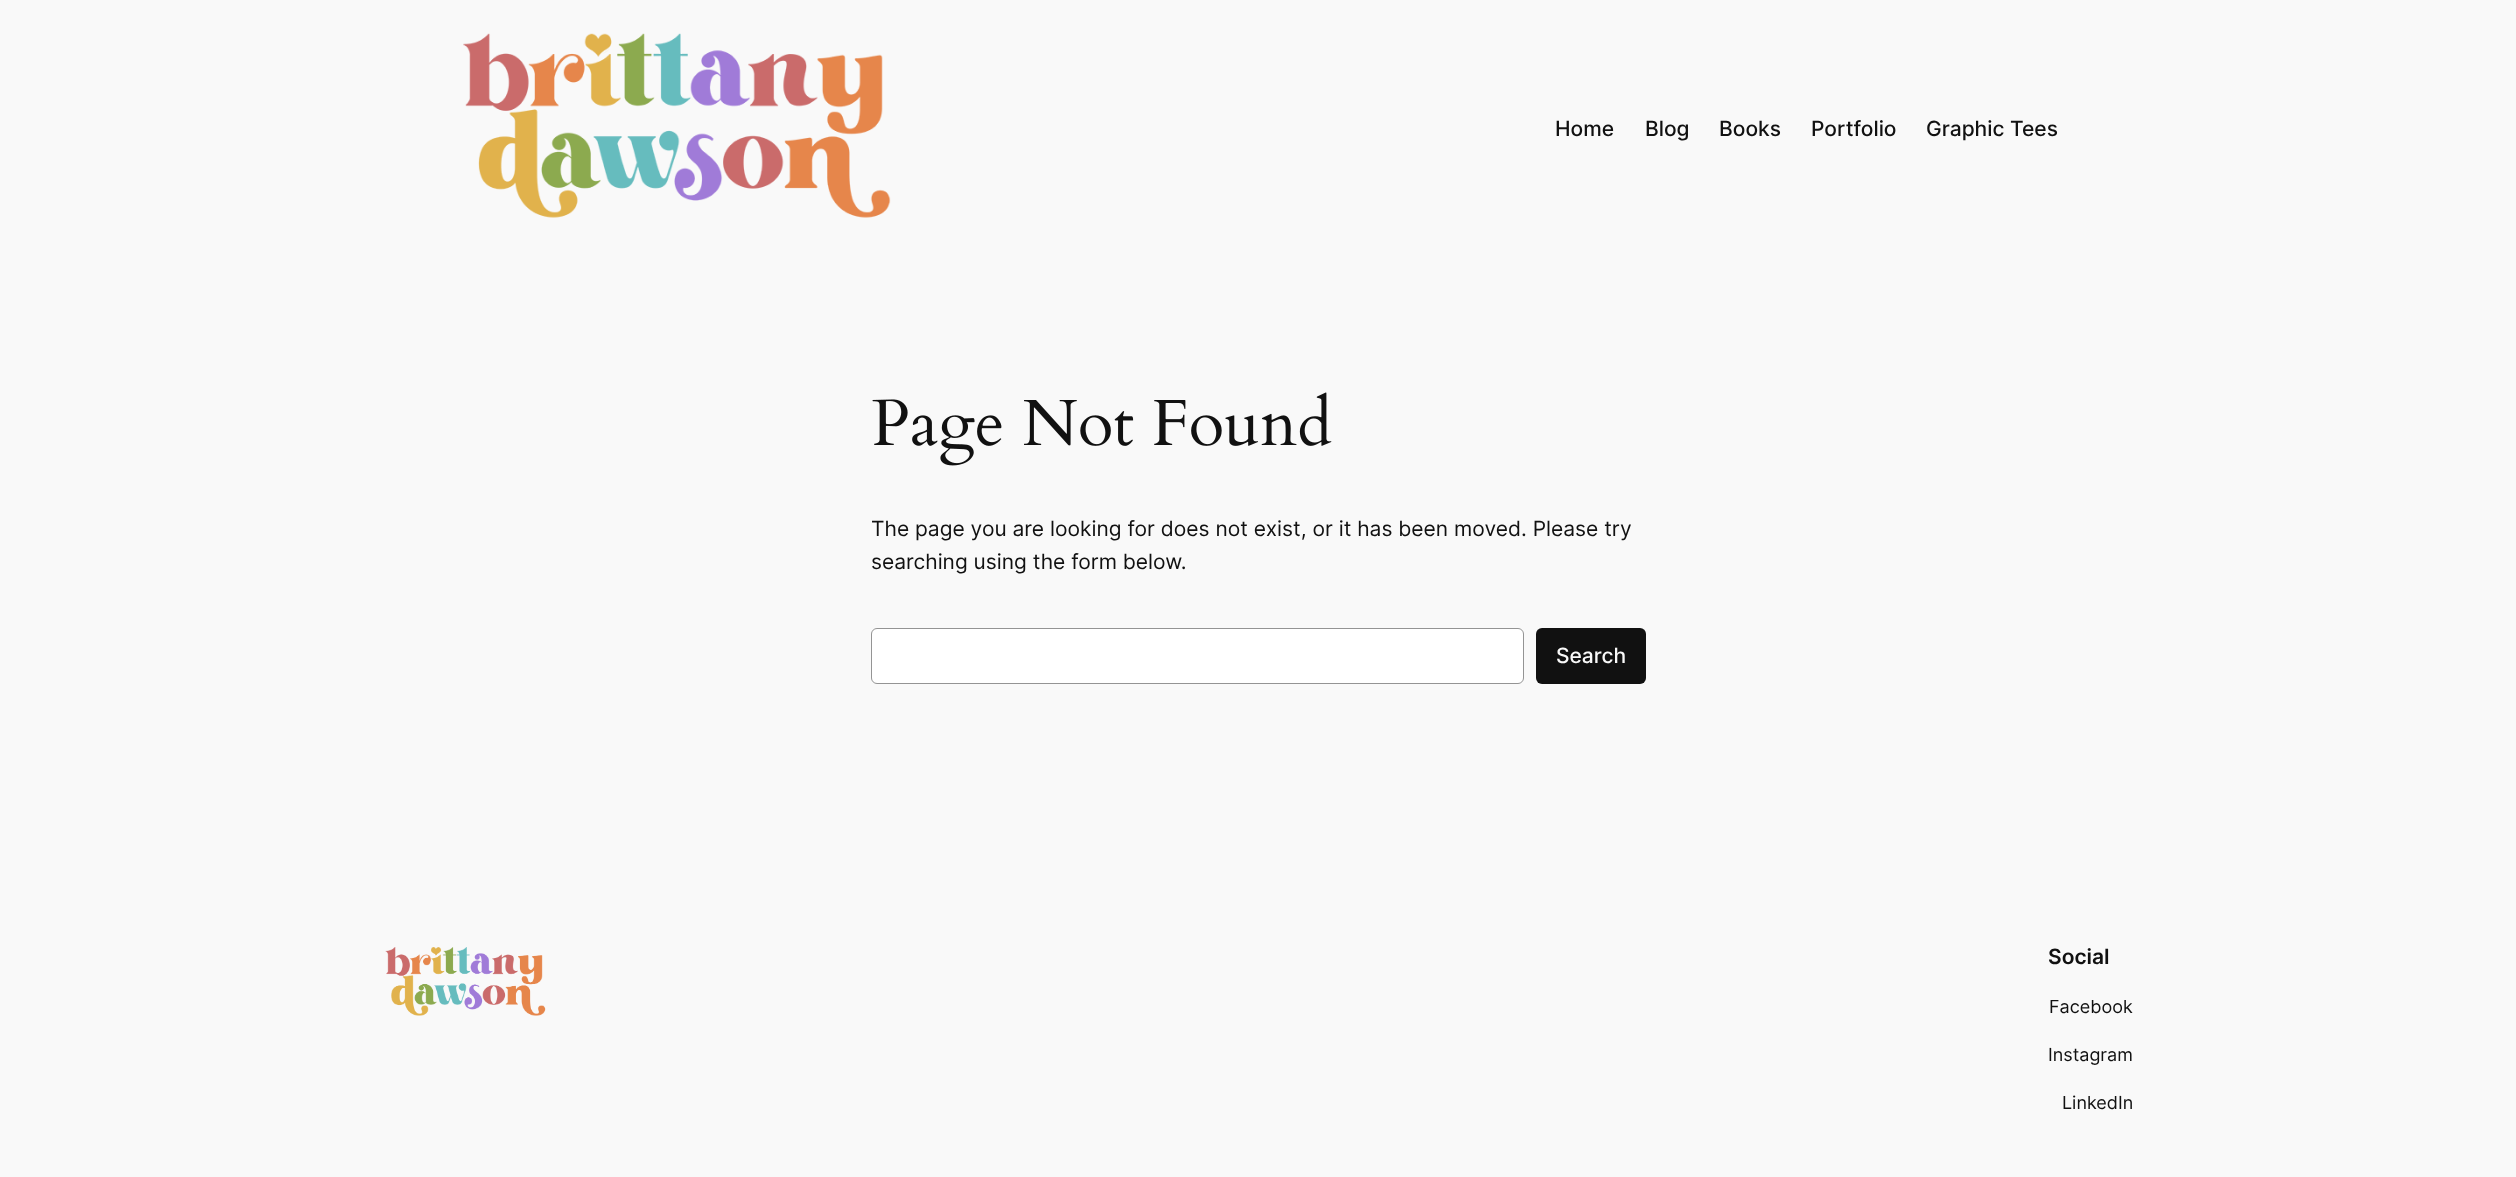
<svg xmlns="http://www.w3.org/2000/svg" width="2516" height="1177">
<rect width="100%" height="100%" fill="#f9f9f9"/>
<image x="463" y="33" width="428" height="185" href="media/1.png"/>
<text x="1555" y="136" style="font-family:Inter;font-size:21px;font-weight:500;fill:#111">Home</text>
<text x="1645" y="136" style="font-family:Inter;font-size:21px;font-weight:500;fill:#111">Blog</text>
<text x="1719" y="136" style="font-family:Inter;font-size:21px;font-weight:500;fill:#111">Books</text>
<text x="1811" y="136" style="font-family:Inter;font-size:21px;font-weight:500;fill:#111">Portfolio</text>
<text x="1926" y="136" style="font-family:Inter;font-size:21px;font-weight:500;fill:#111">Graphic Tees</text>
<image x="872" y="392" width="460" height="74" href="media/2.png"/>
<text x="871" y="536" style="font-family:Inter;font-size:21px;fill:#111">The page you are looking for does not exist, or it has been moved. Please try</text>
<text x="871" y="569" style="font-family:Inter;font-size:21px;fill:#111">searching using the form below.</text>
<rect x="871.5" y="628.5" width="652" height="55" rx="5.5" fill="#fff" stroke="#949494"/>
<rect x="1536" y="628" width="110" height="56" rx="6" fill="#111"/>
<text x="1556" y="663" style="font-family:Inter;font-size:21px;font-weight:500;fill:#f9f9f9">Search</text>
<image x="385" y="947" width="161" height="69" href="media/3.png"/>
<text x="2048" y="964" style="font-family:Inter;font-size:21px;font-weight:600;fill:#111">Social</text>
<text x="2049" y="1013" style="font-family:Inter;font-size:18px;fill:#111">Facebook</text>
<text x="2048" y="1061" style="font-family:Inter;font-size:18px;fill:#111">Instagram</text>
<text x="2062" y="1109" style="font-family:Inter;font-size:18px;fill:#111">LinkedIn</text>
</svg>
